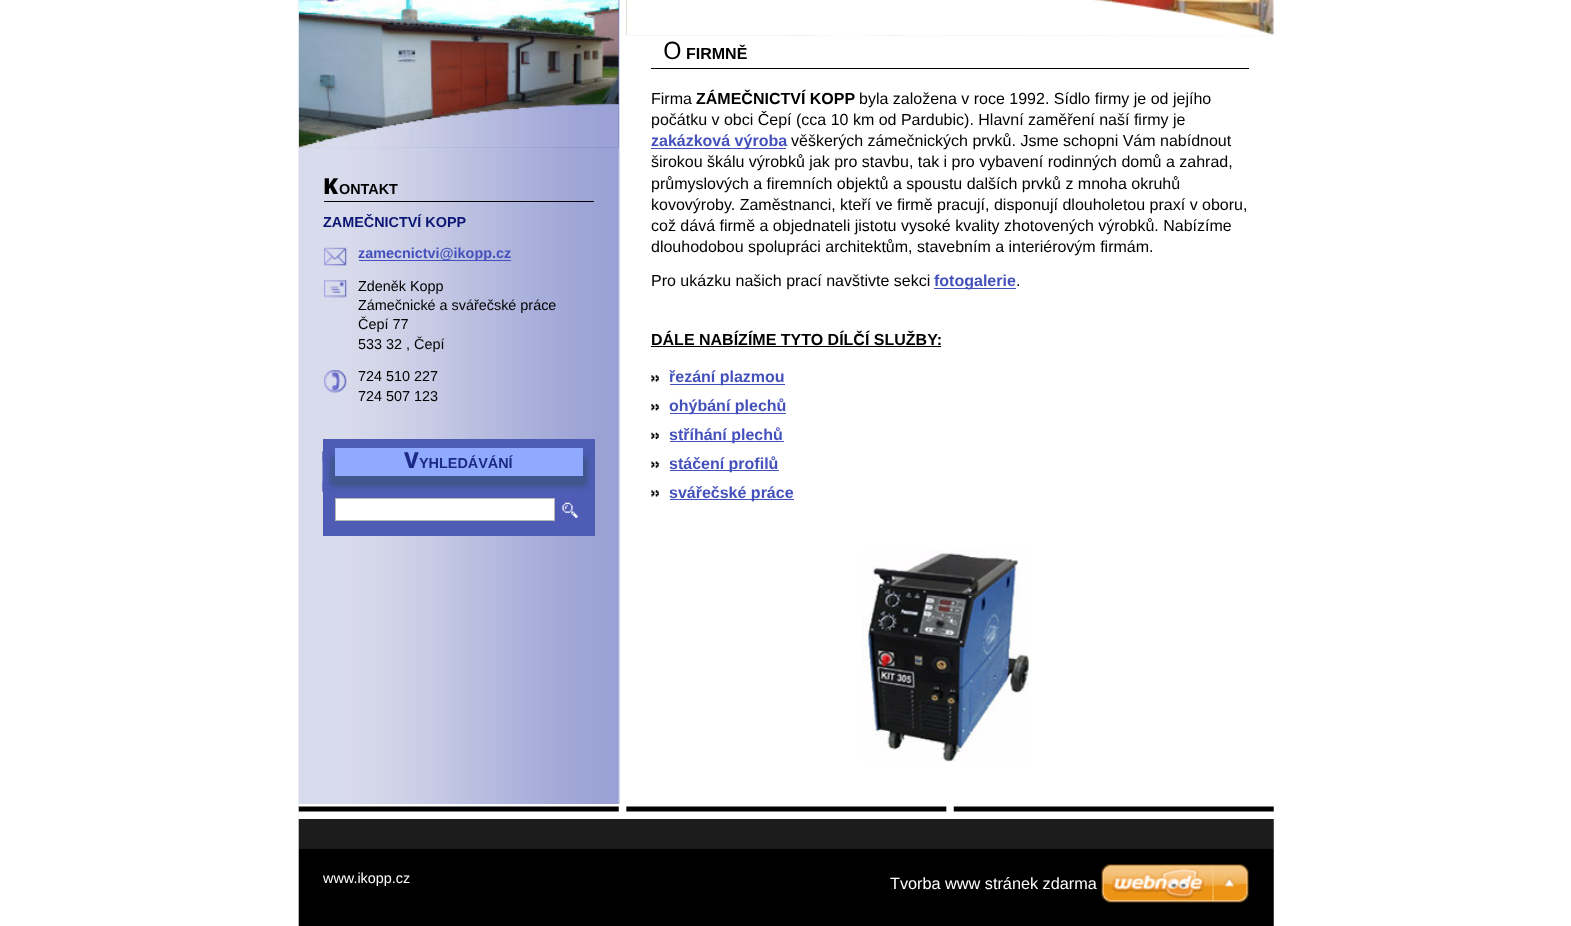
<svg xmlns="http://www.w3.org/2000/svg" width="1571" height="926">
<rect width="100%" height="100%" fill="#fff"/>
<image x="298" y="0" width="322" height="926" href="media/1.png"/>
<image x="299" y="0" width="320" height="148" href="media/2.png"/>
<image x="298" y="0" width="321" height="148" href="media/3.png"/>
<rect x="324" y="201" width="270" height="1" fill="#000"/>
<text x="323" y="194" style="font-family:Noto Sans;font-size:22px;font-weight:900;fill:#000">K</text>
<text x="339" y="194" style="font-family:Liberation Sans;font-size:14.4px;font-weight:bold;fill:#000">ONTAKT</text>
<text x="323" y="227" style="font-family:Liberation Sans;font-size:14.4px;font-weight:bold;fill:#0b1573">ZAMEČNICTVÍ KOPP</text>
<image x="324" y="247" width="23" height="19" href="media/4.png"/>
<rect x="359" y="260" width="152" height="1" fill="#4450bc"/>
<text x="358" y="258" style="font-family:Liberation Sans;font-size:14.4px;font-weight:bold;fill:#4450bc">zamecnictvi@ikopp.cz</text>
<image x="324" y="280" width="23" height="18" href="media/5.png"/>
<text x="358" y="291" style="font-family:Liberation Sans;font-size:14.4px;fill:#000">Zdeněk Kopp</text>
<text x="358" y="310" style="font-family:Liberation Sans;font-size:14.4px;fill:#000">Zámečnické a svářečské práce</text>
<text x="358" y="329" style="font-family:Liberation Sans;font-size:14.4px;fill:#000">Čepí 77</text>
<text x="358" y="349" style="font-family:Liberation Sans;font-size:14.4px;fill:#000">533 32 , Čepí</text>
<image x="324" y="370" width="23" height="23" href="media/6.png"/>
<text x="358" y="381" style="font-family:Liberation Sans;font-size:14.4px;fill:#000">724 510 227</text>
<text x="358" y="401" style="font-family:Liberation Sans;font-size:14.4px;fill:#000">724 507 123</text>
<rect x="323" y="439" width="272" height="97" fill="#4e5cb5"/>
<rect x="323" y="451" width="272" height="31" fill="#40568e"/>
<image x="322" y="451" width="273" height="41" href="media/7.png"/>
<image x="322" y="451" width="273" height="11" href="media/8.png"/>
<rect x="335" y="448" width="248" height="28" fill="#90aaff"/>
<text x="404" y="468" style="font-family:Noto Sans;font-size:22px;font-weight:800;fill:#1d2986">V</text>
<text x="419" y="468" style="font-family:Liberation Sans;font-size:14.4px;font-weight:bold;fill:#1d2986">YHLEDÁVÁNÍ</text>
<image x="322" y="481" width="268" height="11" href="media/9.png"/>
<rect x="335.5" y="498.5" width="219" height="22" fill="#fff" stroke="#b8b8b8"/>
<image x="562" y="502" width="16" height="16" href="media/10.png"/>
<image x="626" y="0" width="648" height="36" href="media/11.png"/>
<image x="626" y="0" width="648" height="35" href="media/12.png"/>
<rect x="651" y="68" width="598" height="1" fill="#000"/>
<text x="663" y="59" style="font-family:Noto Sans;font-size:24px;fill:#000">O</text>
<text x="686" y="59" style="font-family:Liberation Sans;font-size:16px;font-weight:bold;fill:#000">FIRMNĚ</text>
<text x="651" y="104" style="font-family:Liberation Sans;font-size:16px;fill:#000">Firma</text>
<text x="696" y="104" style="font-family:Liberation Sans;font-size:16px;font-weight:bold;fill:#000">ZÁMEČNICTVÍ KOPP</text>
<text x="859" y="104" style="font-family:Liberation Sans;font-size:16px;fill:#000">byla založena v roce 1992. Sídlo firmy je od jejího</text>
<text x="651" y="125" style="font-family:Liberation Sans;font-size:16px;fill:#000">počátku v obci Čepí (cca 10 km od Pardubic). Hlavní zaměření naší firmy je</text>
<rect x="651" y="148" width="135" height="1" fill="#4450bc"/>
<text x="651" y="146" style="font-family:Liberation Sans;font-size:16px;font-weight:bold;fill:#4450bc">zakázková výroba</text>
<text x="791" y="146" style="font-family:Liberation Sans;font-size:16px;fill:#000">věškerých zámečnických prvků. Jsme schopni Vám nabídnout</text>
<text x="651" y="167" style="font-family:Liberation Sans;font-size:16px;fill:#000">širokou škálu výrobků jak pro stavbu, tak i pro vybavení rodinných domů a zahrad,</text>
<text x="651" y="189" style="font-family:Liberation Sans;font-size:16px;fill:#000">průmyslových a firemních objektů a spoustu dalších prvků z mnoha okruhů</text>
<text x="651" y="210" style="font-family:Liberation Sans;font-size:16px;fill:#000">kovovýroby. Zaměstnanci, kteří ve firmě pracují, disponují dlouholetou praxí v oboru,</text>
<text x="651" y="231" style="font-family:Liberation Sans;font-size:16px;fill:#000">což dává firmě a objednateli jistotu vysoké kvality zhotovených výrobků. Nabízíme</text>
<text x="651" y="252" style="font-family:Liberation Sans;font-size:16px;fill:#000">dlouhodobou spolupráci architektům, stavebním a interiérovým firmám.</text>
<text x="651" y="286" style="font-family:Liberation Sans;font-size:16px;fill:#000">Pro ukázku našich prací navštivte sekci</text>
<rect x="934" y="288" width="82" height="1" fill="#4450bc"/>
<text x="934" y="286" style="font-family:Liberation Sans;font-size:16px;font-weight:bold;fill:#4450bc">fotogalerie</text>
<text x="1016" y="286" style="font-family:Liberation Sans;font-size:16px;fill:#000">.</text>
<text x="651" y="345" style="font-family:Liberation Sans;font-size:16px;font-weight:bold;fill:#000">DÁLE NABÍZÍME TYTO DÍLČÍ SLUŽBY:</text>
<rect x="651" y="346" width="290" height="1" fill="#000"/>
<image x="651" y="375" width="8" height="7" href="media/13.png"/>
<rect x="670" y="384" width="115" height="1" fill="#4450bc"/>
<text x="669" y="382" style="font-family:Liberation Sans;font-size:16px;font-weight:bold;fill:#4450bc">řezání plazmou</text>
<image x="651" y="404" width="8" height="7" href="media/14.png"/>
<rect x="670" y="413" width="116" height="1" fill="#4450bc"/>
<text x="669" y="411" style="font-family:Liberation Sans;font-size:16px;font-weight:bold;fill:#4450bc">ohýbání plechů</text>
<image x="651" y="432" width="8" height="7" href="media/15.png"/>
<rect x="670" y="441" width="114" height="1" fill="#4450bc"/>
<text x="669" y="440" style="font-family:Liberation Sans;font-size:16px;font-weight:bold;fill:#4450bc">stříhání plechů</text>
<image x="651" y="461" width="8" height="7" href="media/16.png"/>
<rect x="670" y="470" width="109" height="1" fill="#4450bc"/>
<text x="669" y="469" style="font-family:Liberation Sans;font-size:16px;font-weight:bold;fill:#4450bc">stáčení profilů</text>
<image x="651" y="490" width="8" height="7" href="media/13.png"/>
<rect x="670" y="499" width="124" height="1" fill="#4450bc"/>
<text x="669" y="498" style="font-family:Liberation Sans;font-size:16px;font-weight:bold;fill:#4450bc">svářečské práce</text>
<image x="862" y="550" width="167" height="212" href="media/17.png"/>
<image x="298" y="804" width="976" height="15" href="media/18.png"/>
<image x="298" y="819" width="976" height="107" href="media/19.png"/>
<text x="323" y="883" style="font-family:Liberation Sans;font-size:14.4px;fill:#fff">www.ikopp.cz</text>
<text x="890" y="889" style="font-family:Liberation Sans;font-size:16.25px;fill:#fff">Tvorba www stránek zdarma</text>
<image x="1101" y="864" width="148" height="39" href="media/20.png"/>
</svg>
